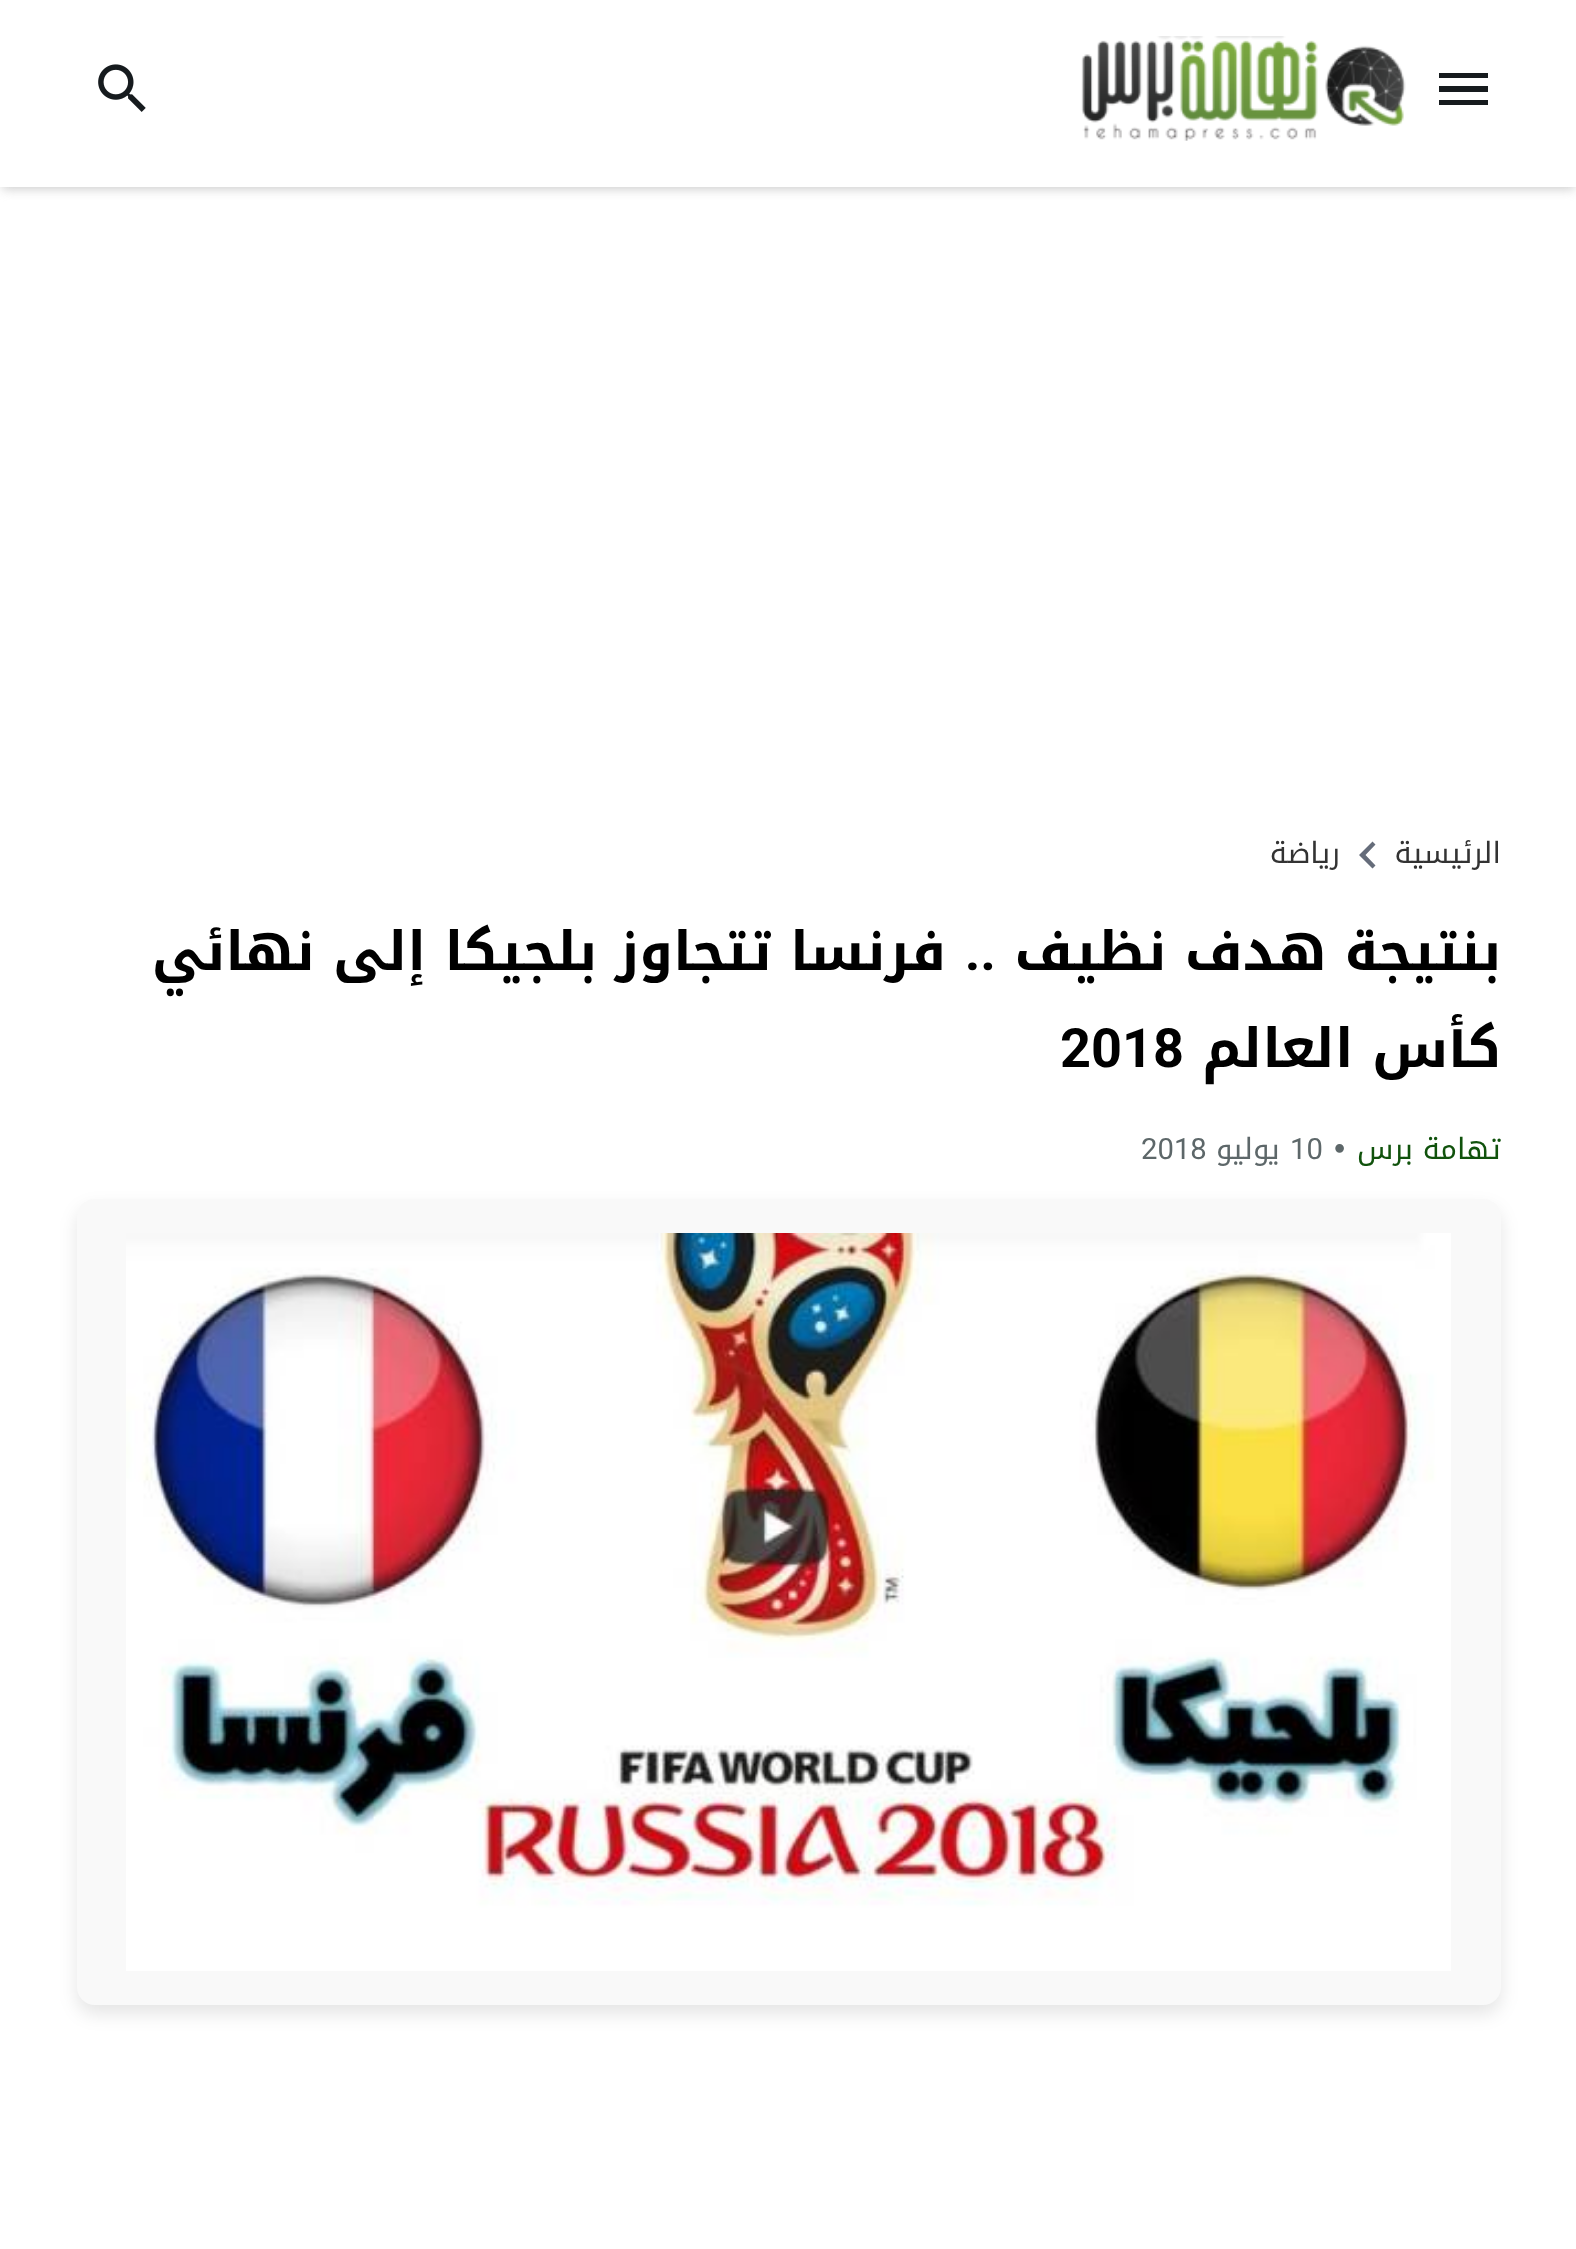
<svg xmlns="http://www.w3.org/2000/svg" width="1576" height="2249">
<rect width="100%" height="100%" fill="#fff"/>
<rect x="2" y="7" width="1573" height="182" fill="#ccc" filter="blur(5.5px)"/>
<rect width="1576" height="187" fill="#fff"/>
<path d="M1439 73h49v5h-49v-5m0 13h49v6h-49v-6m0 14h49v5h-49z" fill="#161b1e"/>
<image x="1081" y="36" width="325" height="105" href="media/1.png"/>
<image x="98" y="64" width="48" height="48" href="media/2.png"/>
<text x="1501" y="863" style="font-family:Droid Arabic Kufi;font-size:29.25px;direction:rtl;fill:#333">الرئيسية</text>
<path d="M1375.5 865.5l-10-10.5l10-10.5l-3-3l-13.5 13.5l13.5 13.5z" fill="#656c7a"/>
<text x="1340" y="863" style="font-family:Droid Arabic Kufi;font-size:29.25px;direction:rtl;fill:#333">رياضة</text>
<text x="1501" y="970" style="font-family:Droid Arabic Kufi;font-size:54px;font-weight:bold;direction:rtl;fill:#000">بنتيجة هدف نظيف</text>
<text x="996" y="970" style="font-family:Roboto;font-size:54px;font-weight:bold;direction:rtl;fill:#000">..</text>
<text x="946" y="970" style="font-family:Droid Arabic Kufi;font-size:54px;font-weight:bold;direction:rtl;fill:#000">فرنسا تتجاوز بلجيكا إلى نهائي</text>
<text x="1501" y="1067" style="font-family:Droid Arabic Kufi;font-size:54px;font-weight:bold;direction:rtl;fill:#000">كأس العالم</text>
<text x="1060" y="1067" style="font-family:Roboto;font-size:54px;font-weight:bold;fill:#000">2018</text>
<text x="1501" y="1159" style="font-family:Droid Arabic Kufi;font-size:29.25px;direction:rtl;fill:#10520c">تهامة برس</text>
<text x="1334" y="1159" style="font-family:Liberation Sans;font-size:32px;fill:#5d6769">•</text>
<text x="1290" y="1159" style="font-family:Roboto;font-size:29.25px;fill:#5d6769">10</text>
<text x="1280" y="1159" style="font-family:Droid Arabic Kufi;font-size:29.25px;direction:rtl;fill:#5d6769">يوليو</text>
<text x="1141" y="1159" style="font-family:Roboto;font-size:29.25px;fill:#5d6769">2018</text>
<rect x="77" y="1208" width="1424" height="806" rx="18" fill="#0000001a" filter="blur(9px)"/>
<rect x="77" y="1199" width="1424" height="806" rx="18" fill="#f9f9f9"/>
<image x="126" y="1233" width="1325" height="738" href="media/3.png"/>
</svg>
